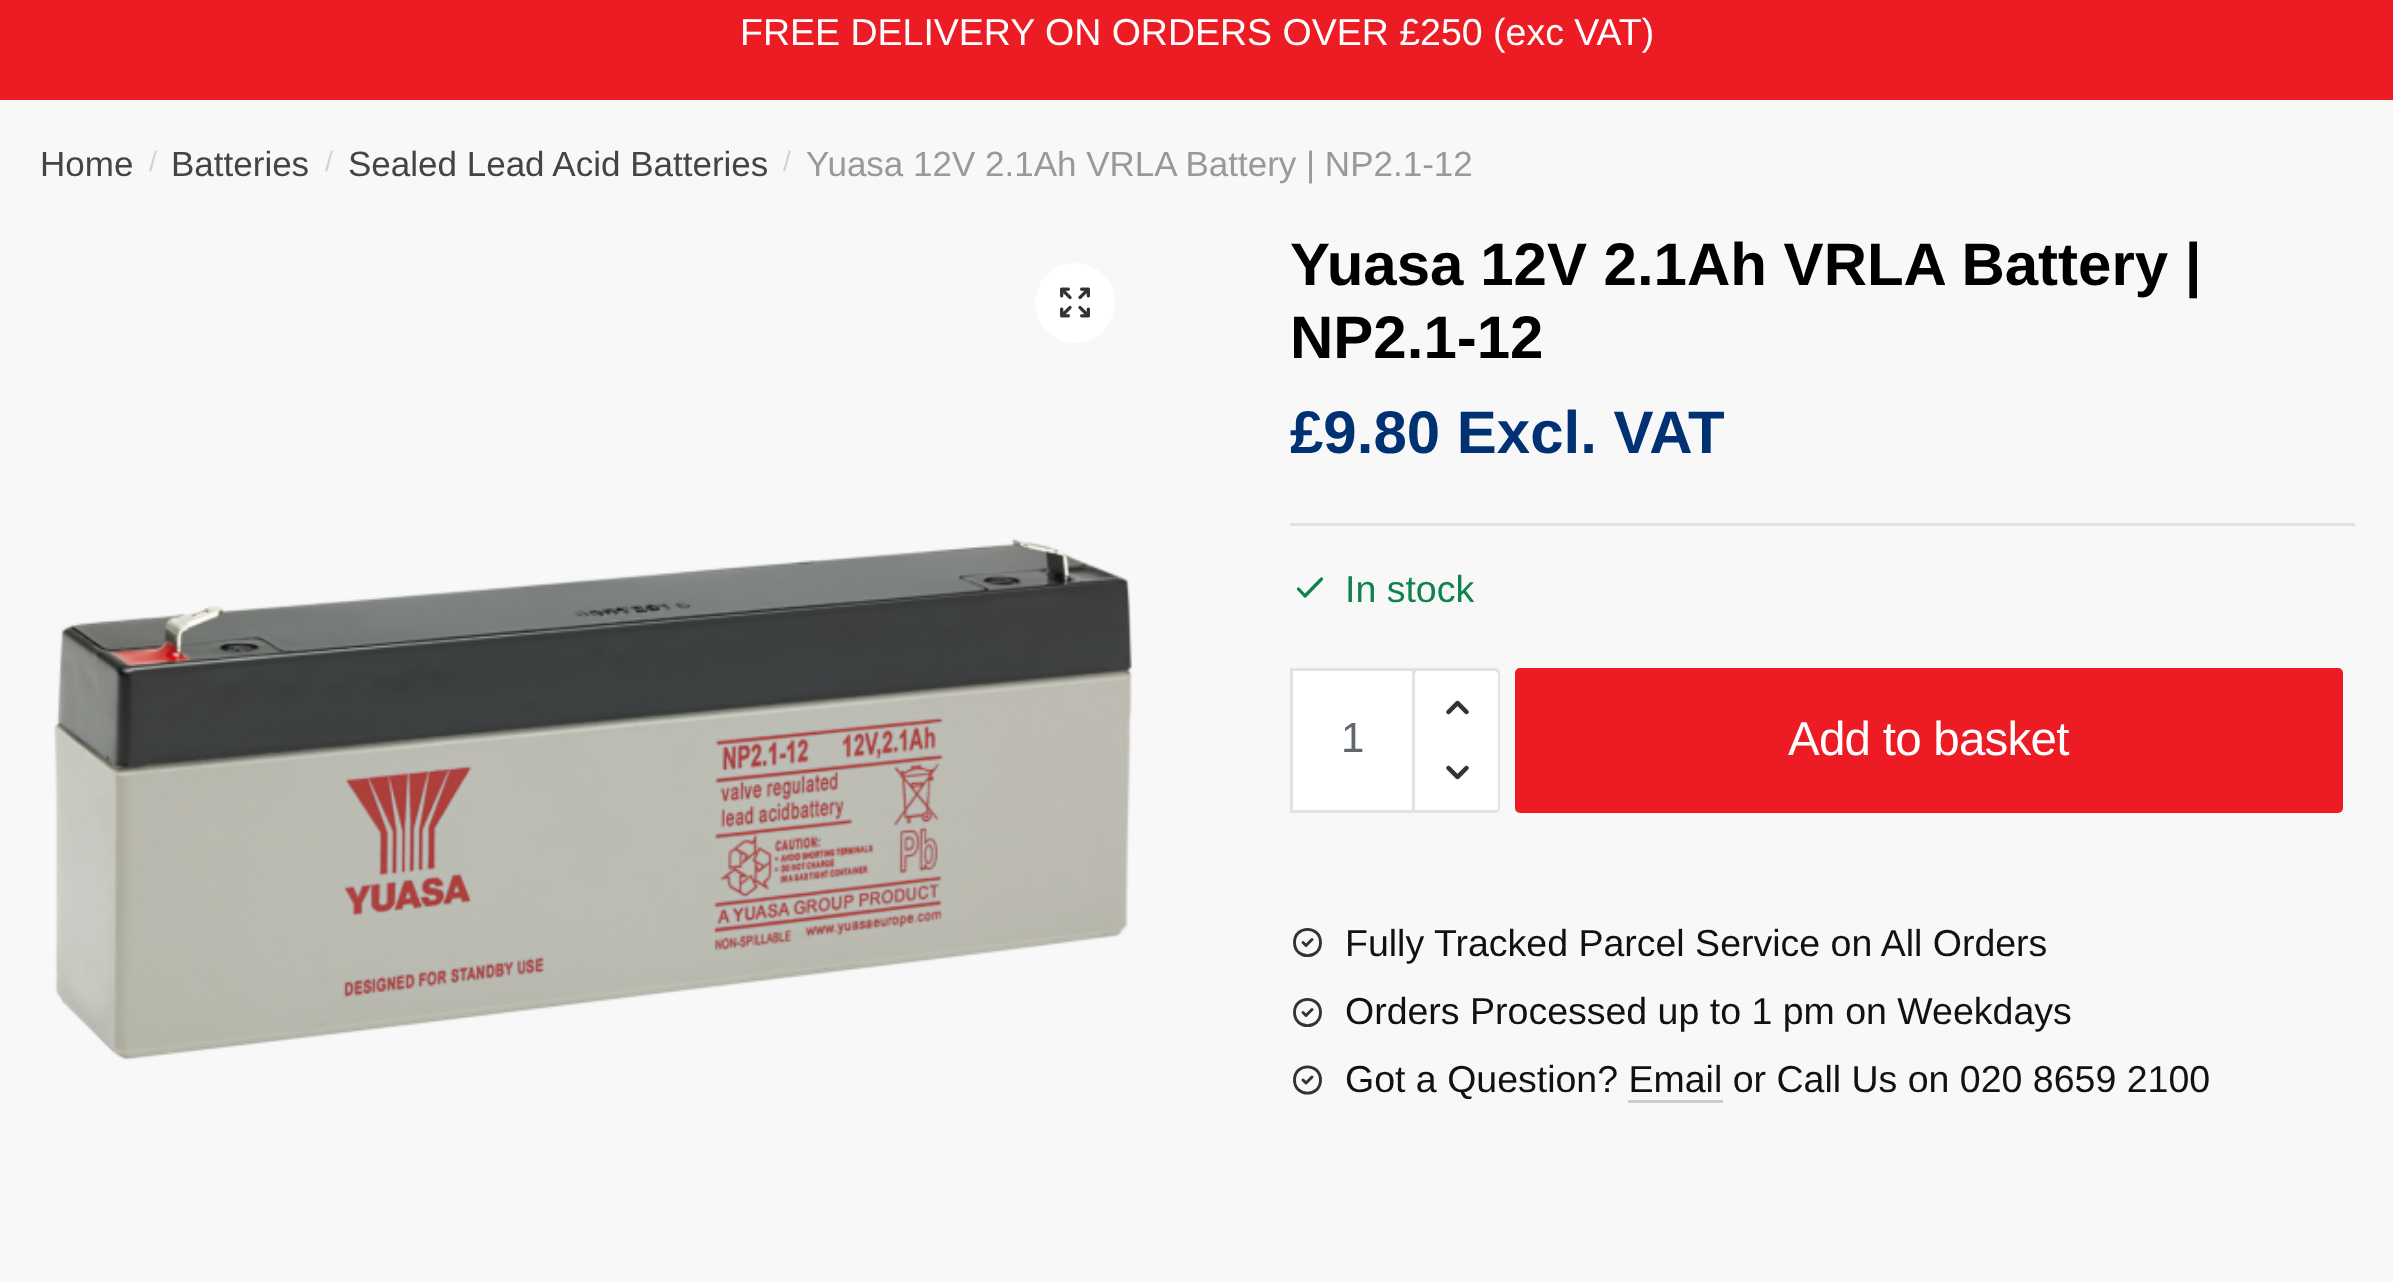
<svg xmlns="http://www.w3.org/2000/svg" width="2393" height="1282">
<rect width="100%" height="100%" fill="#ed1c24"/>
<text x="740" y="45" style="font-family:Liberation Sans;font-size:37.5px;fill:#fff">FREE DELIVERY ON ORDERS OVER £250 (exc VAT)</text>
<rect y="100" width="2393" height="1182" fill="#f8f8f8"/>
<text x="40" y="176" style="font-family:Liberation Sans;font-size:35px;fill:#444">Home</text>
<text x="149" y="171" style="font-family:Liberation Sans;font-size:28px;fill:#d2d2d2">/</text>
<text x="171" y="176" style="font-family:Liberation Sans;font-size:35px;fill:#444">Batteries</text>
<text x="325" y="171" style="font-family:Liberation Sans;font-size:28px;fill:#d2d2d2">/</text>
<text x="348" y="176" style="font-family:Liberation Sans;font-size:35px;fill:#444">Sealed Lead Acid Batteries</text>
<text x="783" y="171" style="font-family:Liberation Sans;font-size:28px;fill:#d2d2d2">/</text>
<text x="806" y="176" style="font-family:Liberation Sans;font-size:35px;fill:#999">Yuasa 12V 2.1Ah VRLA Battery | NP2.1-12</text>
<circle cx="1075" cy="303" r="40" fill="#fff"/>
<image x="1060" y="287" width="30" height="31" href="media/1.png"/>
<image x="53" y="538" width="1080" height="523" href="media/2.png"/>
<text x="1290" y="285" style="font-family:Liberation Sans;font-size:60px;font-weight:bold;fill:#000">Yuasa 12V 2.1Ah VRLA Battery |</text>
<text x="1290" y="358" style="font-family:Liberation Sans;font-size:60px;font-weight:bold;fill:#000">NP2.1-12</text>
<text x="1290" y="453" style="font-family:Liberation Sans;font-size:60px;font-weight:bold;fill:#003273">£9.80 Excl. VAT</text>
<rect x="1290" y="523" width="1065" height="3" fill="#e2e2e2"/>
<path d="M1298.5 589l6.5 7l16.5-17" fill="none" stroke="#0f834d" stroke-width="3.3" stroke-linecap="round" stroke-linejoin="round"/>
<text x="1345" y="602" style="font-family:Liberation Sans;font-size:37.5px;fill:#0f834d">In stock</text>
<rect x="1291.5" y="669.5" width="122" height="142" fill="#fff" stroke="#e2e2e2" stroke-width="3"/>
<text x="1341" y="752" style="font-family:Liberation Sans;font-size:42px;fill:#61676d">1</text>
<path d="M1414.5 669.5h80.5c2 0 3.5 1.5 3.5 3.5v135c0 2-1.5 3.5-3.5 3.5h-80.5z" fill="#fff" stroke="#e2e2e2" stroke-width="3"/>
<rect x="1415" y="673" width="83" height="137" fill="#fff"/>
<image x="1446" y="700" width="23" height="15" href="media/3.png"/>
<image x="1446" y="765" width="23" height="15" href="media/4.png"/>
<rect x="1515" y="668" width="828" height="145" rx="5" fill="#ed1c24"/>
<text x="1788" y="755" style="font-family:Liberation Sans;font-size:47.5px;letter-spacing:-0.75px;fill:#fff">Add to basket</text>
<path d="M1303 942.5l3 3l6-6m8.5 3c0 17.5-26 17.5-26 0c0-17.5 26-17.5 26 0z" fill="none" stroke="#333" stroke-width="2.9" stroke-linecap="round" stroke-linejoin="round"/>
<text x="1345" y="956" style="font-family:Liberation Sans;font-size:37.5px;fill:#111">Fully Tracked Parcel Service on All Orders</text>
<path d="M1303 1012.5l3 3l6-6m8.5 3c0 17.5-26 17.5-26 0c0-17.5 26-17.5 26 0z" fill="none" stroke="#333" stroke-width="2.9" stroke-linecap="round" stroke-linejoin="round"/>
<text x="1345" y="1024" style="font-family:Liberation Sans;font-size:37.5px;fill:#111">Orders Processed up to 1 pm on Weekdays</text>
<path d="M1303 1080l3 3l6-6m8.5 3c0 17.5-26 17.5-26 0c0-17.5 26-17.5 26 0z" fill="none" stroke="#333" stroke-width="2.9" stroke-linecap="round" stroke-linejoin="round"/>
<text x="1345" y="1092" style="font-family:Liberation Sans;font-size:37.5px;fill:#111">Got a Question? Email or Call Us on 020 8659 2100</text>
<rect x="1628" y="1100" width="95" height="3" fill="#ccc"/>
</svg>
